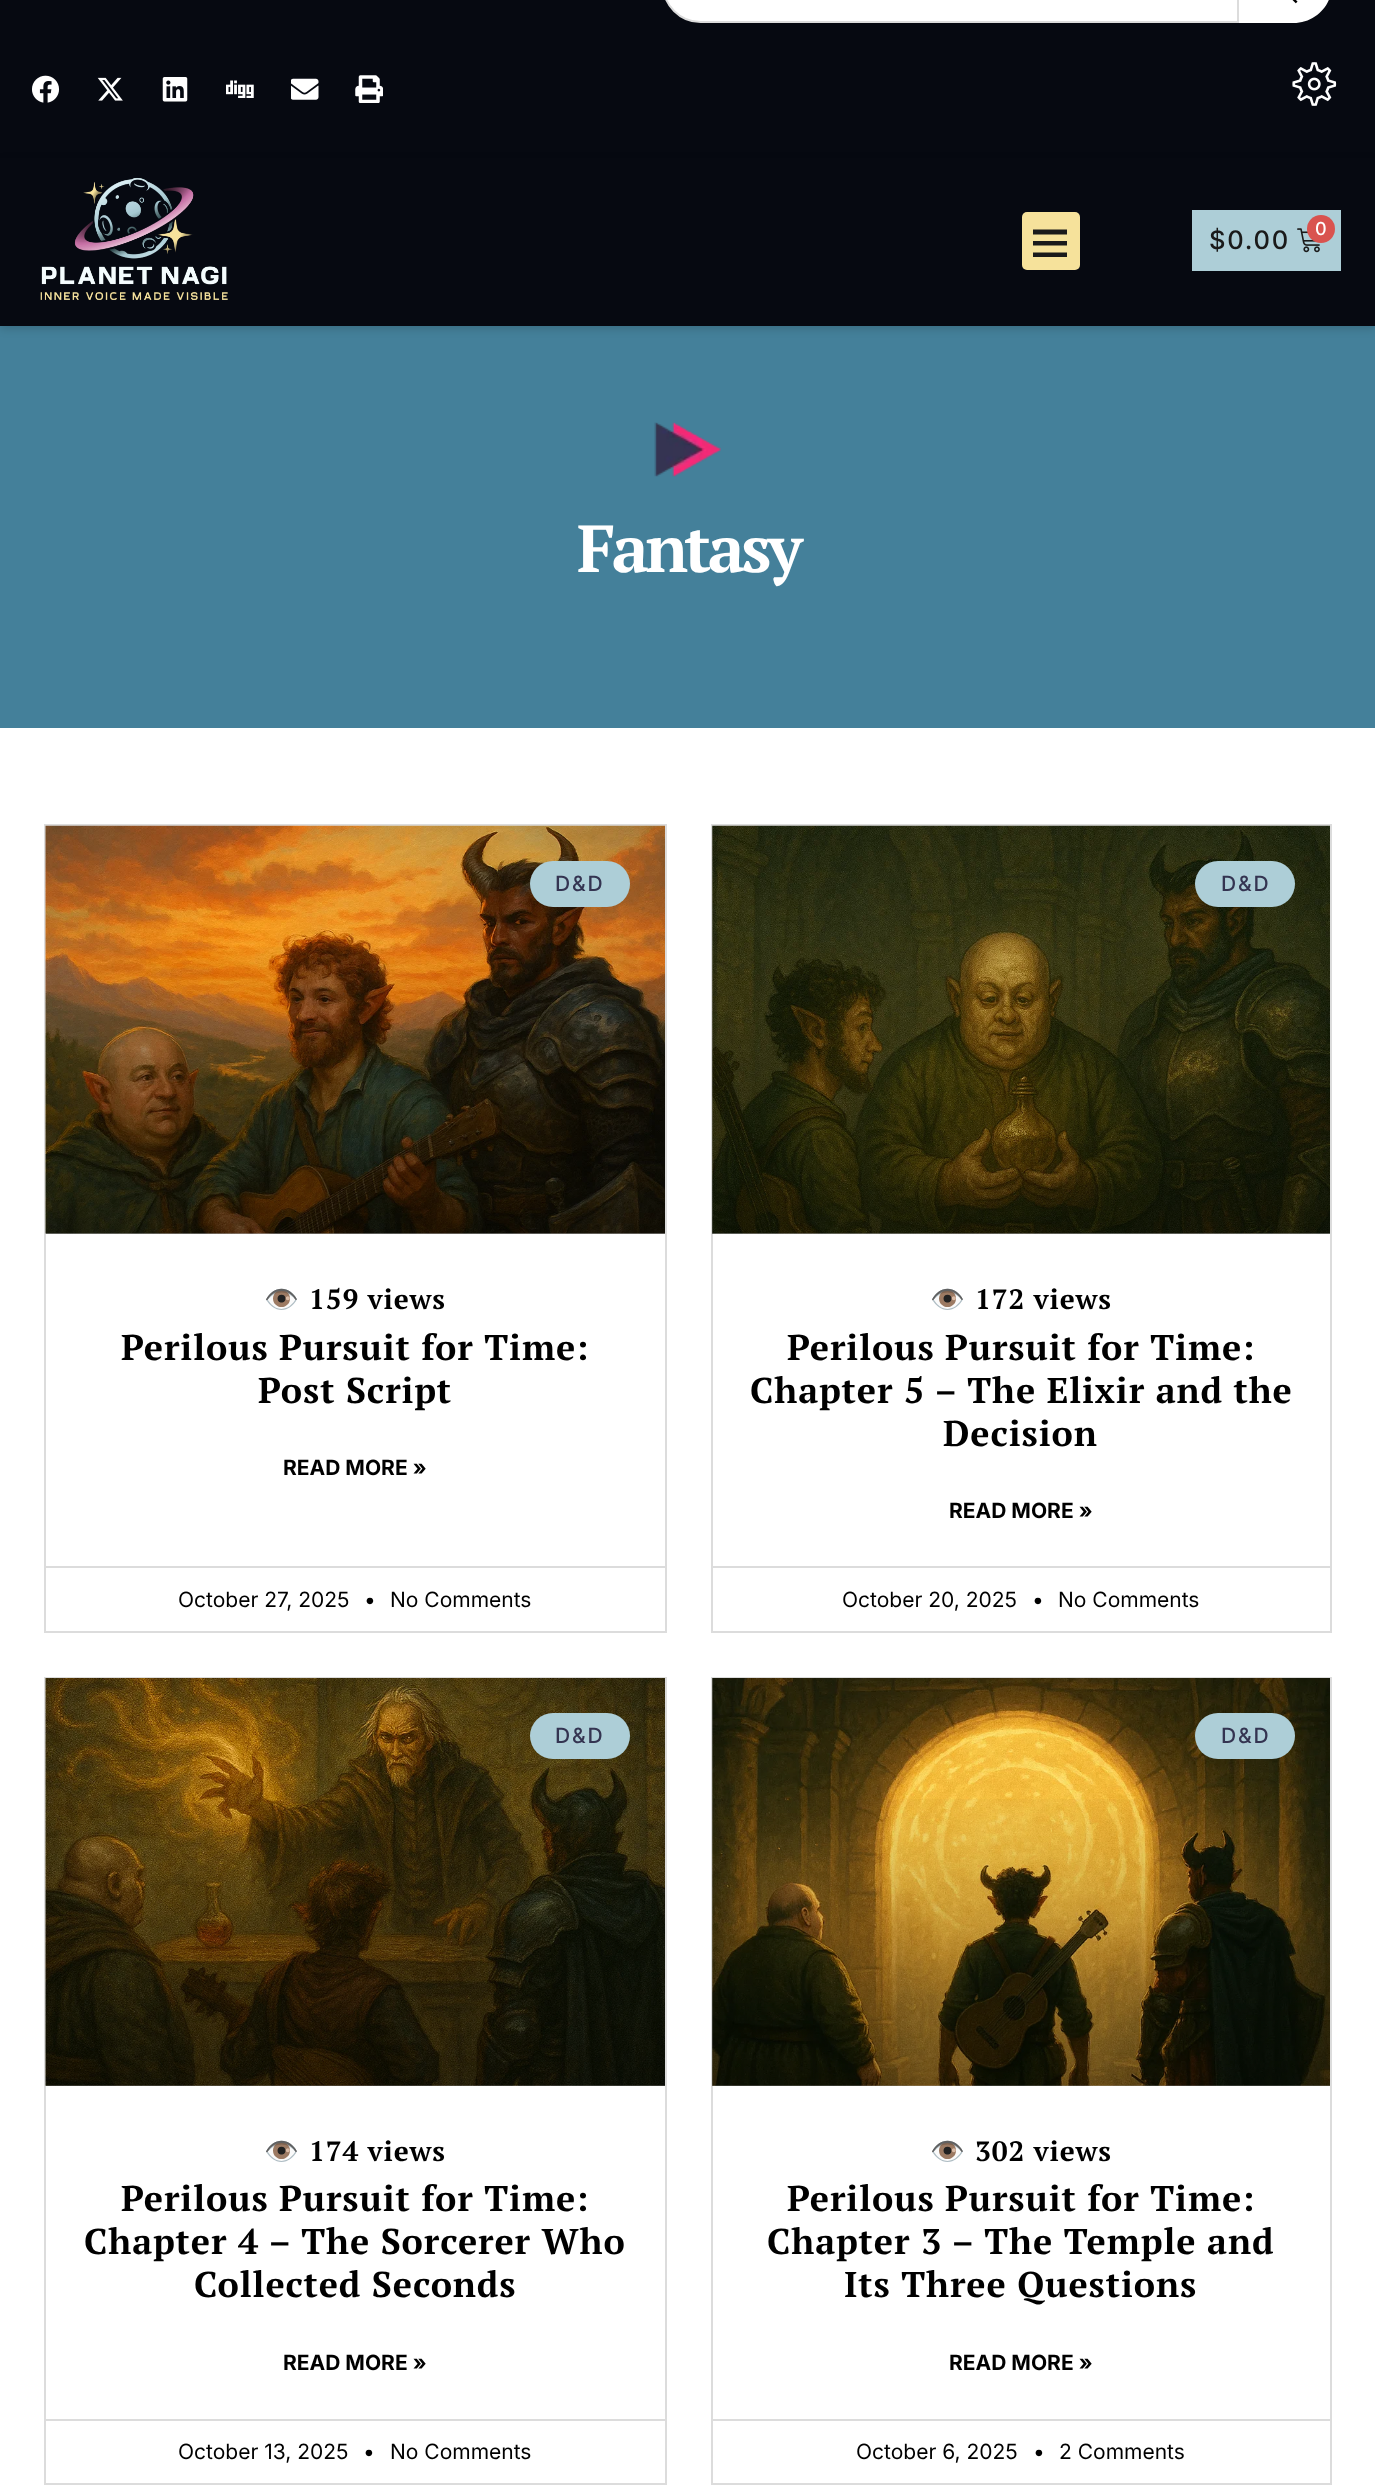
<svg xmlns="http://www.w3.org/2000/svg" width="1375" height="2492">
<defs>
<linearGradient id="g1" gradientUnits="userSpaceOnUse" x1="355" y1="1234" x2="355" y2="826"><stop offset="0" stop-color="#000" stop-opacity="0.35"/><stop offset="0.75" stop-color="#000" stop-opacity="0"/></linearGradient>
<linearGradient id="g2" gradientUnits="userSpaceOnUse" x1="1021" y1="1234" x2="1021" y2="826"><stop offset="0" stop-color="#000" stop-opacity="0.35"/><stop offset="0.75" stop-color="#000" stop-opacity="0"/></linearGradient>
<linearGradient id="g3" gradientUnits="userSpaceOnUse" x1="355" y1="2086" x2="355" y2="1678"><stop offset="0" stop-color="#000" stop-opacity="0.35"/><stop offset="0.75" stop-color="#000" stop-opacity="0"/></linearGradient>
<linearGradient id="g4" gradientUnits="userSpaceOnUse" x1="1021" y1="2086" x2="1021" y2="1678"><stop offset="0" stop-color="#000" stop-opacity="0.35"/><stop offset="0.75" stop-color="#000" stop-opacity="0"/></linearGradient>
</defs>
<rect width="100%" height="100%" fill="#fff"/>
<rect width="1375" height="158" fill="#060911"/>
<path d="M700.5-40h537.5v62h-537.5c-20.5 0-37.5-17-37.5-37.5v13c0-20.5 17-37.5 37.5-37.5z" fill="#fff" stroke="#dcdcdc" stroke-width="2"/>
<path d="M1239-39h54.5c21.5 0 38.5 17 38.5 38.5v-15c0 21.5-17 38.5-38.5 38.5h-54.5z" fill="#fff"/>
<image x="1292" y="0" width="6" height="4" href="media/1.png"/>
<image x="32" y="75" width="28" height="28" href="media/2.png"/>
<image x="97" y="77" width="26" height="24" href="media/3.png"/>
<image x="162" y="77" width="26" height="25" href="media/4.png"/>
<image x="226" y="80" width="28" height="18" href="media/5.png"/>
<image x="291" y="78" width="28" height="22" href="media/6.png"/>
<image x="355" y="75" width="28" height="28" href="media/7.png"/>
<image x="1292" y="62" width="45" height="44" href="media/8.png"/>
<rect y="326" width="1375" height="402" fill="#44809a"/>
<rect y="161" width="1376" height="168" fill="#00000026" filter="blur(4.5px)"/>
<rect y="158" width="1375" height="168" fill="#060911"/>
<image x="40" y="177" width="188" height="123" href="media/9.png"/>
<rect x="1022" y="212" width="58" height="58" rx="5" fill="#f6e29b"/>
<path d="M1067 229.5v5h-34v-5zm-34 16h34v-4.5h-34zm0 11.5h34v-4.5h-34z" fill="#1a1a1a"/>
<rect x="1192" y="210" width="149" height="61" fill="#adced7"/>
<text x="1209" y="249" style="font-family:Inter;font-size:25.5px;font-weight:500;letter-spacing:1.75px;fill:#1a1a1a">$0.00</text>
<image x="1297" y="228" width="23" height="25" href="media/10.png"/>
<circle cx="1321" cy="229" r="14" fill="#d9534f"/>
<text x="1315" y="235" style="font-family:Inter;font-size:18px;font-weight:500;letter-spacing:1.75px;fill:#fff">0</text>
<image x="654" y="422" width="67" height="55" href="media/11.png"/>
<text x="577" y="572" style="font-family:PT Serif;font-size:66.5px;font-weight:bold;letter-spacing:-3.5px;fill:#fff">Fantasy</text>
<rect x="45" y="825" width="621" height="807" fill="none" stroke="#dcdcdc" stroke-width="2"/>
<image x="45" y="825" width="620" height="409" href="media/12.png"/>
<rect x="46" y="947" width="619" height="287" fill="url(#g1)"/>
<rect x="530" y="861" width="100" height="46" rx="23" fill="#adced7"/>
<text x="555" y="891" style="font-family:Inter;font-size:21px;font-weight:500;letter-spacing:1.75px;fill:#343451">D&amp;D</text>
<text x="264" y="1309" style="font-family:Noto Color Emoji;font-size:28px;font-weight:bold;letter-spacing:0.9px;fill:#000">👁️</text>
<text x="309" y="1309" style="font-family:PT Serif;font-size:28px;font-weight:bold;letter-spacing:0.9px;fill:#000">159 views</text>
<text x="121" y="1360" style="font-family:PT Serif;font-size:35.9px;font-weight:bold;letter-spacing:0.9px;fill:#000">Perilous Pursuit for Time:</text>
<text x="258" y="1403" style="font-family:PT Serif;font-size:35.9px;font-weight:bold;letter-spacing:0.9px;fill:#000">Post Script</text>
<text x="283" y="1475" style="font-family:Inter;font-size:21px;font-weight:bold;fill:#000">READ MORE »</text>
<rect x="46" y="1566" width="619" height="2" fill="#dcdcdc"/>
<text x="178" y="1607" style="font-family:Inter;font-size:21px;fill:#000">October 27, 2025</text>
<text x="364" y="1607" style="font-family:Inter;font-size:21px;fill:#000">•</text>
<text x="390" y="1607" style="font-family:Inter;font-size:21px;fill:#000">No Comments</text>
<rect x="712" y="825" width="619" height="807" fill="none" stroke="#dcdcdc" stroke-width="2"/>
<image x="712" y="825" width="618" height="409" href="media/13.png"/>
<rect x="712" y="947" width="618" height="287" fill="url(#g2)"/>
<rect x="1195" y="861" width="100" height="46" rx="23" fill="#adced7"/>
<text x="1221" y="891" style="font-family:Inter;font-size:21px;font-weight:500;letter-spacing:1.75px;fill:#343451">D&amp;D</text>
<text x="930" y="1309" style="font-family:Noto Color Emoji;font-size:28px;font-weight:bold;letter-spacing:0.9px;fill:#000">👁️</text>
<text x="975" y="1309" style="font-family:PT Serif;font-size:28px;font-weight:bold;letter-spacing:0.9px;fill:#000">172 views</text>
<text x="787" y="1360" style="font-family:PT Serif;font-size:35.9px;font-weight:bold;letter-spacing:0.9px;fill:#000">Perilous Pursuit for Time:</text>
<text x="750" y="1403" style="font-family:PT Serif;font-size:35.9px;font-weight:bold;letter-spacing:0.9px;fill:#000">Chapter 5 – The Elixir and the</text>
<text x="943" y="1446" style="font-family:PT Serif;font-size:35.9px;font-weight:bold;letter-spacing:0.9px;fill:#000">Decision</text>
<text x="949" y="1518" style="font-family:Inter;font-size:21px;font-weight:bold;fill:#000">READ MORE »</text>
<rect x="712" y="1566" width="618" height="2" fill="#dcdcdc"/>
<text x="842" y="1607" style="font-family:Inter;font-size:21px;fill:#000">October 20, 2025</text>
<text x="1032" y="1607" style="font-family:Inter;font-size:21px;fill:#000">•</text>
<text x="1058" y="1607" style="font-family:Inter;font-size:21px;fill:#000">No Comments</text>
<rect x="45" y="1678" width="621" height="806" fill="none" stroke="#dcdcdc" stroke-width="2"/>
<image x="45" y="1678" width="620" height="408" href="media/14.png"/>
<rect x="46" y="1799" width="619" height="287" fill="url(#g3)"/>
<rect x="530" y="1713" width="100" height="46" rx="23" fill="#adced7"/>
<text x="555" y="1743" style="font-family:Inter;font-size:21px;font-weight:500;letter-spacing:1.75px;fill:#343451">D&amp;D</text>
<text x="264" y="2161" style="font-family:Noto Color Emoji;font-size:28px;font-weight:bold;letter-spacing:0.9px;fill:#000">👁️</text>
<text x="309" y="2161" style="font-family:PT Serif;font-size:28px;font-weight:bold;letter-spacing:0.9px;fill:#000">174 views</text>
<text x="121" y="2211" style="font-family:PT Serif;font-size:35.9px;font-weight:bold;letter-spacing:0.9px;fill:#000">Perilous Pursuit for Time:</text>
<text x="84" y="2254" style="font-family:PT Serif;font-size:35.9px;font-weight:bold;letter-spacing:0.9px;fill:#000">Chapter 4 – The Sorcerer Who</text>
<text x="194" y="2297" style="font-family:PT Serif;font-size:35.9px;font-weight:bold;letter-spacing:0.9px;fill:#000">Collected Seconds</text>
<text x="283" y="2370" style="font-family:Inter;font-size:21px;font-weight:bold;fill:#000">READ MORE »</text>
<rect x="46" y="2419" width="619" height="2" fill="#dcdcdc"/>
<text x="178" y="2459" style="font-family:Inter;font-size:21px;fill:#000">October 13, 2025</text>
<text x="363" y="2459" style="font-family:Inter;font-size:21px;fill:#000">•</text>
<text x="390" y="2459" style="font-family:Inter;font-size:21px;fill:#000">No Comments</text>
<rect x="712" y="1678" width="619" height="806" fill="none" stroke="#dcdcdc" stroke-width="2"/>
<image x="712" y="1678" width="618" height="408" href="media/15.png"/>
<rect x="712" y="1799" width="618" height="287" fill="url(#g4)"/>
<rect x="1195" y="1713" width="100" height="46" rx="23" fill="#adced7"/>
<text x="1221" y="1743" style="font-family:Inter;font-size:21px;font-weight:500;letter-spacing:1.75px;fill:#343451">D&amp;D</text>
<text x="930" y="2161" style="font-family:Noto Color Emoji;font-size:28px;font-weight:bold;letter-spacing:0.9px;fill:#000">👁️</text>
<text x="975" y="2161" style="font-family:PT Serif;font-size:28px;font-weight:bold;letter-spacing:0.9px;fill:#000">302 views</text>
<text x="787" y="2211" style="font-family:PT Serif;font-size:35.9px;font-weight:bold;letter-spacing:0.9px;fill:#000">Perilous Pursuit for Time:</text>
<text x="767" y="2254" style="font-family:PT Serif;font-size:35.9px;font-weight:bold;letter-spacing:0.9px;fill:#000">Chapter 3 – The Temple and</text>
<text x="844" y="2297" style="font-family:PT Serif;font-size:35.9px;font-weight:bold;letter-spacing:0.9px;fill:#000">Its Three Questions</text>
<text x="949" y="2370" style="font-family:Inter;font-size:21px;font-weight:bold;fill:#000">READ MORE »</text>
<rect x="712" y="2419" width="618" height="2" fill="#dcdcdc"/>
<text x="856" y="2459" style="font-family:Inter;font-size:21px;fill:#000">October 6, 2025</text>
<text x="1033" y="2459" style="font-family:Inter;font-size:21px;fill:#000">•</text>
<text x="1059" y="2459" style="font-family:Inter;font-size:21px;fill:#000">2 Comments</text>
</svg>
